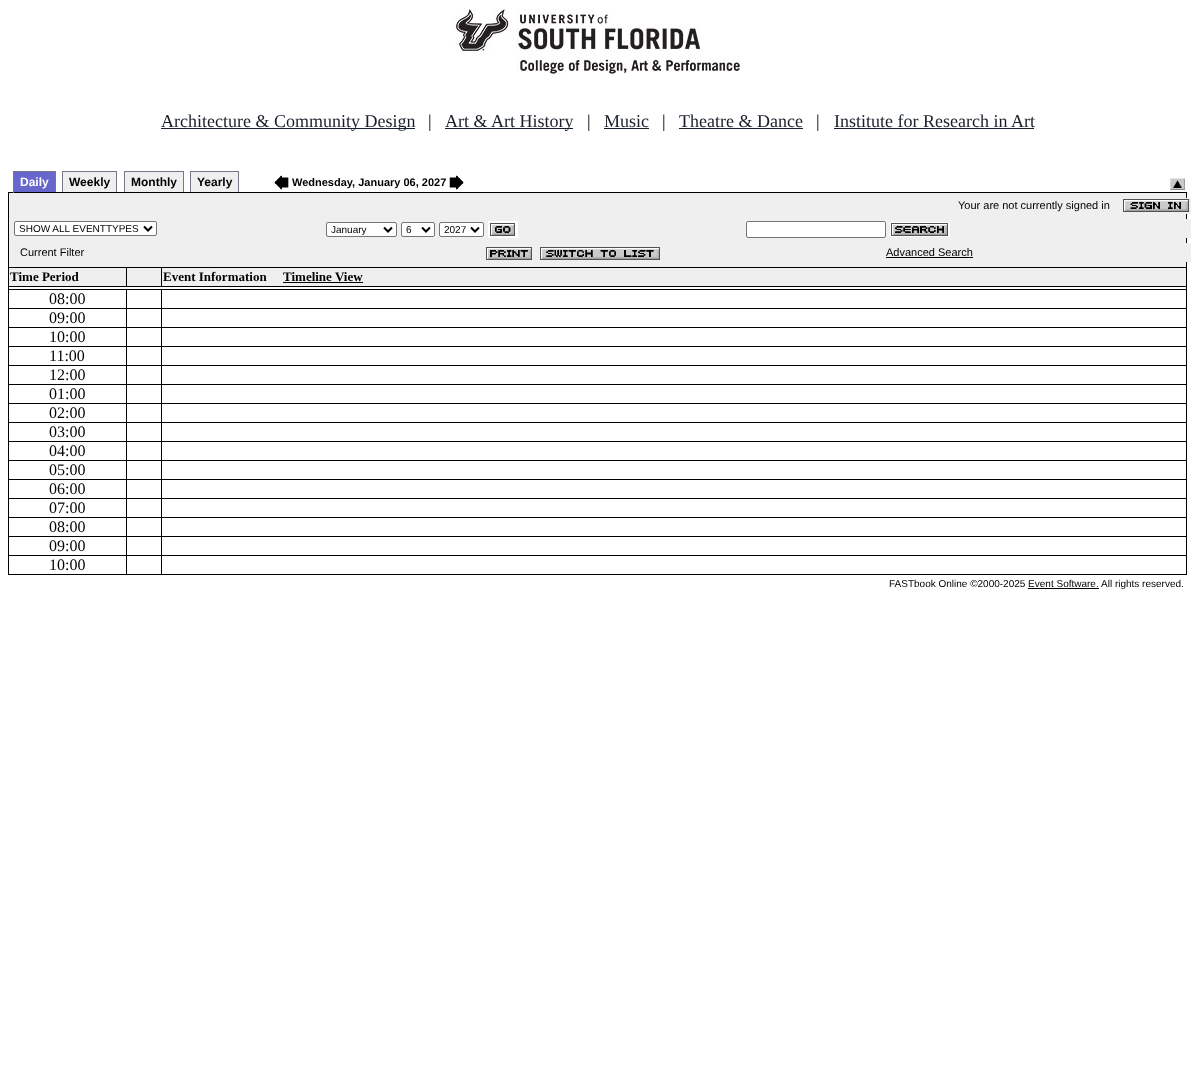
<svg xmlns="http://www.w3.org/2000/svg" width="1195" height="1087">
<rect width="100%" height="100%" fill="#fff"/>
<image x="452" y="8" width="288" height="67" href="media/1.png"/>
<rect x="161" y="128" width="254" height="1" fill="#17202a"/>
<text x="161" y="127" style="font-family:Liberation Serif;font-size:18px;fill:#17202a">Architecture &amp; Community Design</text>
<text x="428" y="127" style="font-family:Liberation Serif;font-size:18px;fill:#000">|</text>
<rect x="445" y="128" width="128" height="1" fill="#17202a"/>
<text x="445" y="127" style="font-family:Liberation Serif;font-size:18px;fill:#17202a">Art &amp; Art History</text>
<text x="587" y="127" style="font-family:Liberation Serif;font-size:18px;fill:#000">|</text>
<text x="604" y="127" style="font-family:Liberation Serif;font-size:18px;fill:#17202a">Music</text>
<rect x="604" y="128" width="45" height="1" fill="#17202a"/>
<text x="662" y="127" style="font-family:Liberation Serif;font-size:18px;fill:#000">|</text>
<text x="679" y="127" style="font-family:Liberation Serif;font-size:18px;fill:#17202a">Theatre &amp; Dance</text>
<rect x="679" y="128" width="124" height="1" fill="#17202a"/>
<text x="816" y="127" style="font-family:Liberation Serif;font-size:18px;fill:#000">|</text>
<text x="834" y="127" style="font-family:Liberation Serif;font-size:18px;fill:#17202a">Institute for Research in Art</text>
<rect x="834" y="128" width="200" height="1" fill="#17202a"/>
<rect x="14" y="172" width="41" height="20" fill="#66c"/>
<text x="20" y="186" style="font-family:Liberation Sans;font-size:12px;font-weight:bold;fill:#fff">Daily</text>
<rect x="13" y="171" width="43" height="1" fill="#778"/>
<rect x="8" y="192" width="1179" height="1" fill="#000"/>
<rect x="55" y="171" width="1" height="22" fill="#778"/>
<rect x="55" y="192" width="1" height="1" fill="#000"/>
<rect x="13" y="171" width="1" height="22" fill="#778"/>
<rect x="63" y="172" width="53" height="20" fill="#efefef"/>
<text x="69" y="186" style="font-family:Liberation Sans;font-size:12px;font-weight:bold;fill:#000">Weekly</text>
<rect x="62" y="171" width="55" height="1" fill="#778"/>
<rect x="116" y="171" width="1" height="21" fill="#778"/>
<rect x="62" y="171" width="1" height="21" fill="#778"/>
<rect x="125" y="172" width="58" height="20" fill="#efefef"/>
<text x="131" y="186" style="font-family:Liberation Sans;font-size:12px;font-weight:bold;fill:#000">Monthly</text>
<rect x="124" y="171" width="60" height="1" fill="#778"/>
<rect x="183" y="171" width="1" height="21" fill="#778"/>
<rect x="124" y="171" width="1" height="21" fill="#778"/>
<rect x="191" y="172" width="47" height="20" fill="#efefef"/>
<text x="197" y="186" style="font-family:Liberation Sans;font-size:12px;font-weight:bold;fill:#000">Yearly</text>
<rect x="190" y="171" width="49" height="1" fill="#778"/>
<rect x="238" y="171" width="1" height="21" fill="#778"/>
<rect x="190" y="171" width="1" height="21" fill="#778"/>
<image x="274" y="175" width="15" height="15" href="media/2.png"/>
<text x="292" y="186" style="font-family:Liberation Sans;font-size:11px;font-weight:bold;fill:#000">Wednesday, January 06, 2027</text>
<image x="449" y="175" width="15" height="15" href="media/3.png"/>
<image x="1170" y="178" width="15" height="12" href="media/4.png"/>
<rect x="9" y="193" width="1177" height="74" fill="#efefef"/>
<rect x="1186" y="192" width="1" height="75" fill="#000"/>
<rect x="8" y="192" width="1" height="75" fill="#000"/>
<rect x="1186" y="198" width="5" height="16" fill="#efefef"/>
<text x="958" y="209" style="font-family:Liberation Sans;font-size:11px;fill:#000">Your are not currently signed in</text>
<image x="1123" y="199" width="66" height="13" href="media/5.png"/>
<rect x="1186" y="219" width="5" height="19" fill="#efefef"/>
<rect x="14.5" y="221.5" width="142" height="14" rx="1.5" fill="#fff" stroke="#767676"/>
<path d="M144 226.5l4 4l4-4" fill="none" stroke="#000" stroke-width="2"/>
<text x="19" y="232" style="font-family:Liberation Sans;font-size:10px;fill:#000">SHOW ALL EVENTTYPES</text>
<rect x="326.5" y="222.5" width="70" height="14" rx="1.5" fill="#fff" stroke="#767676"/>
<path d="M384 227.5l4 4l4-4" fill="none" stroke="#000" stroke-width="2"/>
<text x="331" y="233" style="font-family:Liberation Sans;font-size:10px;fill:#000">January</text>
<rect x="401.5" y="222.5" width="33" height="14" rx="1.5" fill="#fff" stroke="#767676"/>
<path d="M422 227.5l4 4l4-4" fill="none" stroke="#000" stroke-width="2"/>
<text x="406" y="233" style="font-family:Liberation Sans;font-size:10px;fill:#000">6</text>
<rect x="439.5" y="222.5" width="44" height="14" rx="1.5" fill="#fff" stroke="#767676"/>
<path d="M471 227.5l4 4l4-4" fill="none" stroke="#000" stroke-width="2"/>
<text x="444" y="233" style="font-family:Liberation Sans;font-size:10px;fill:#000">2027</text>
<rect x="488" y="221" width="30" height="17" fill="#fff"/>
<image x="490" y="223" width="25" height="13" href="media/6.png"/>
<rect x="746.5" y="221.5" width="139" height="16" rx="1.5" fill="#fff" stroke="#767676"/>
<rect x="890" y="222" width="60" height="15" fill="#fff"/>
<image x="891" y="223" width="57" height="13" href="media/7.png"/>
<rect x="1186" y="243" width="5" height="19" fill="#efefef"/>
<text x="20" y="256" style="font-family:Liberation Sans;font-size:11px;fill:#000">Current Filter</text>
<image x="486" y="247" width="46" height="13" href="media/8.png"/>
<image x="540" y="247" width="120" height="13" href="media/9.png"/>
<text x="886" y="256" style="font-family:Liberation Sans;font-size:11px;fill:#000">Advanced Search</text>
<rect x="886" y="257" width="87" height="1" fill="#000"/>
<rect x="8" y="267" width="1179" height="1" fill="#000"/>
<rect x="8" y="267" width="1" height="308" fill="#000"/>
<rect x="9" y="268" width="117" height="18" fill="#efefef"/>
<rect x="126" y="268" width="1" height="19" fill="#000"/>
<rect x="9" y="286" width="118" height="1" fill="#000"/>
<text x="10" y="281" style="font-family:Liberation Serif;font-size:13px;font-weight:bold;fill:#000">Time Period</text>
<rect x="127" y="268" width="34" height="18" fill="#efefef"/>
<rect x="161" y="268" width="1" height="19" fill="#000"/>
<rect x="127" y="286" width="35" height="1" fill="#000"/>
<rect x="162" y="268" width="1024" height="18" fill="#efefef"/>
<rect x="1186" y="268" width="1" height="307" fill="#000"/>
<rect x="162" y="286" width="1025" height="1" fill="#000"/>
<text x="163" y="281" style="font-family:Liberation Serif;font-size:13px;font-weight:bold;fill:#000">Event Information</text>
<text x="283" y="281" style="font-family:Liberation Serif;font-size:13px;font-weight:bold;fill:#000">Timeline View</text>
<rect x="283" y="282" width="80" height="1" fill="#000"/>
<rect x="9" y="289" width="1178" height="1" fill="#000"/>
<rect x="126" y="290" width="1" height="285" fill="#000"/>
<rect x="9" y="308" width="118" height="1" fill="#000"/>
<text x="49" y="304" style="font-family:Liberation Serif;font-size:16px;fill:#000">08:00</text>
<rect x="161" y="290" width="1" height="285" fill="#000"/>
<rect x="127" y="308" width="1060" height="1" fill="#000"/>
<rect x="9" y="327" width="1178" height="1" fill="#000"/>
<text x="49" y="323" style="font-family:Liberation Serif;font-size:16px;fill:#000">09:00</text>
<rect x="9" y="346" width="1178" height="1" fill="#000"/>
<text x="49" y="342" style="font-family:Liberation Serif;font-size:16px;fill:#000">10:00</text>
<rect x="9" y="365" width="1178" height="1" fill="#000"/>
<text x="49" y="361" style="font-family:Liberation Serif;font-size:16px;fill:#000">11:00</text>
<rect x="9" y="384" width="1178" height="1" fill="#000"/>
<text x="49" y="380" style="font-family:Liberation Serif;font-size:16px;fill:#000">12:00</text>
<rect x="9" y="403" width="1178" height="1" fill="#000"/>
<text x="49" y="399" style="font-family:Liberation Serif;font-size:16px;fill:#000">01:00</text>
<rect x="9" y="422" width="1178" height="1" fill="#000"/>
<text x="49" y="418" style="font-family:Liberation Serif;font-size:16px;fill:#000">02:00</text>
<rect x="9" y="441" width="1178" height="1" fill="#000"/>
<text x="49" y="437" style="font-family:Liberation Serif;font-size:16px;fill:#000">03:00</text>
<rect x="9" y="460" width="1178" height="1" fill="#000"/>
<text x="49" y="456" style="font-family:Liberation Serif;font-size:16px;fill:#000">04:00</text>
<rect x="9" y="479" width="1178" height="1" fill="#000"/>
<text x="49" y="475" style="font-family:Liberation Serif;font-size:16px;fill:#000">05:00</text>
<rect x="9" y="498" width="1178" height="1" fill="#000"/>
<text x="49" y="494" style="font-family:Liberation Serif;font-size:16px;fill:#000">06:00</text>
<rect x="9" y="517" width="1178" height="1" fill="#000"/>
<text x="49" y="513" style="font-family:Liberation Serif;font-size:16px;fill:#000">07:00</text>
<rect x="9" y="536" width="1178" height="1" fill="#000"/>
<text x="49" y="532" style="font-family:Liberation Serif;font-size:16px;fill:#000">08:00</text>
<rect x="9" y="555" width="1178" height="1" fill="#000"/>
<text x="49" y="551" style="font-family:Liberation Serif;font-size:16px;fill:#000">09:00</text>
<rect x="9" y="574" width="1178" height="1" fill="#000"/>
<text x="49" y="570" style="font-family:Liberation Serif;font-size:16px;fill:#000">10:00</text>
<text x="889" y="587" style="font-family:Liberation Sans;font-size:10px;fill:#000">FASTbook Online ©2000-2025 Event Software.</text>
<rect x="1028" y="588" width="71" height="1" fill="#000"/>
<text x="1101" y="587" style="font-family:Liberation Sans;font-size:10px;fill:#000">All rights reserved.</text>
</svg>
